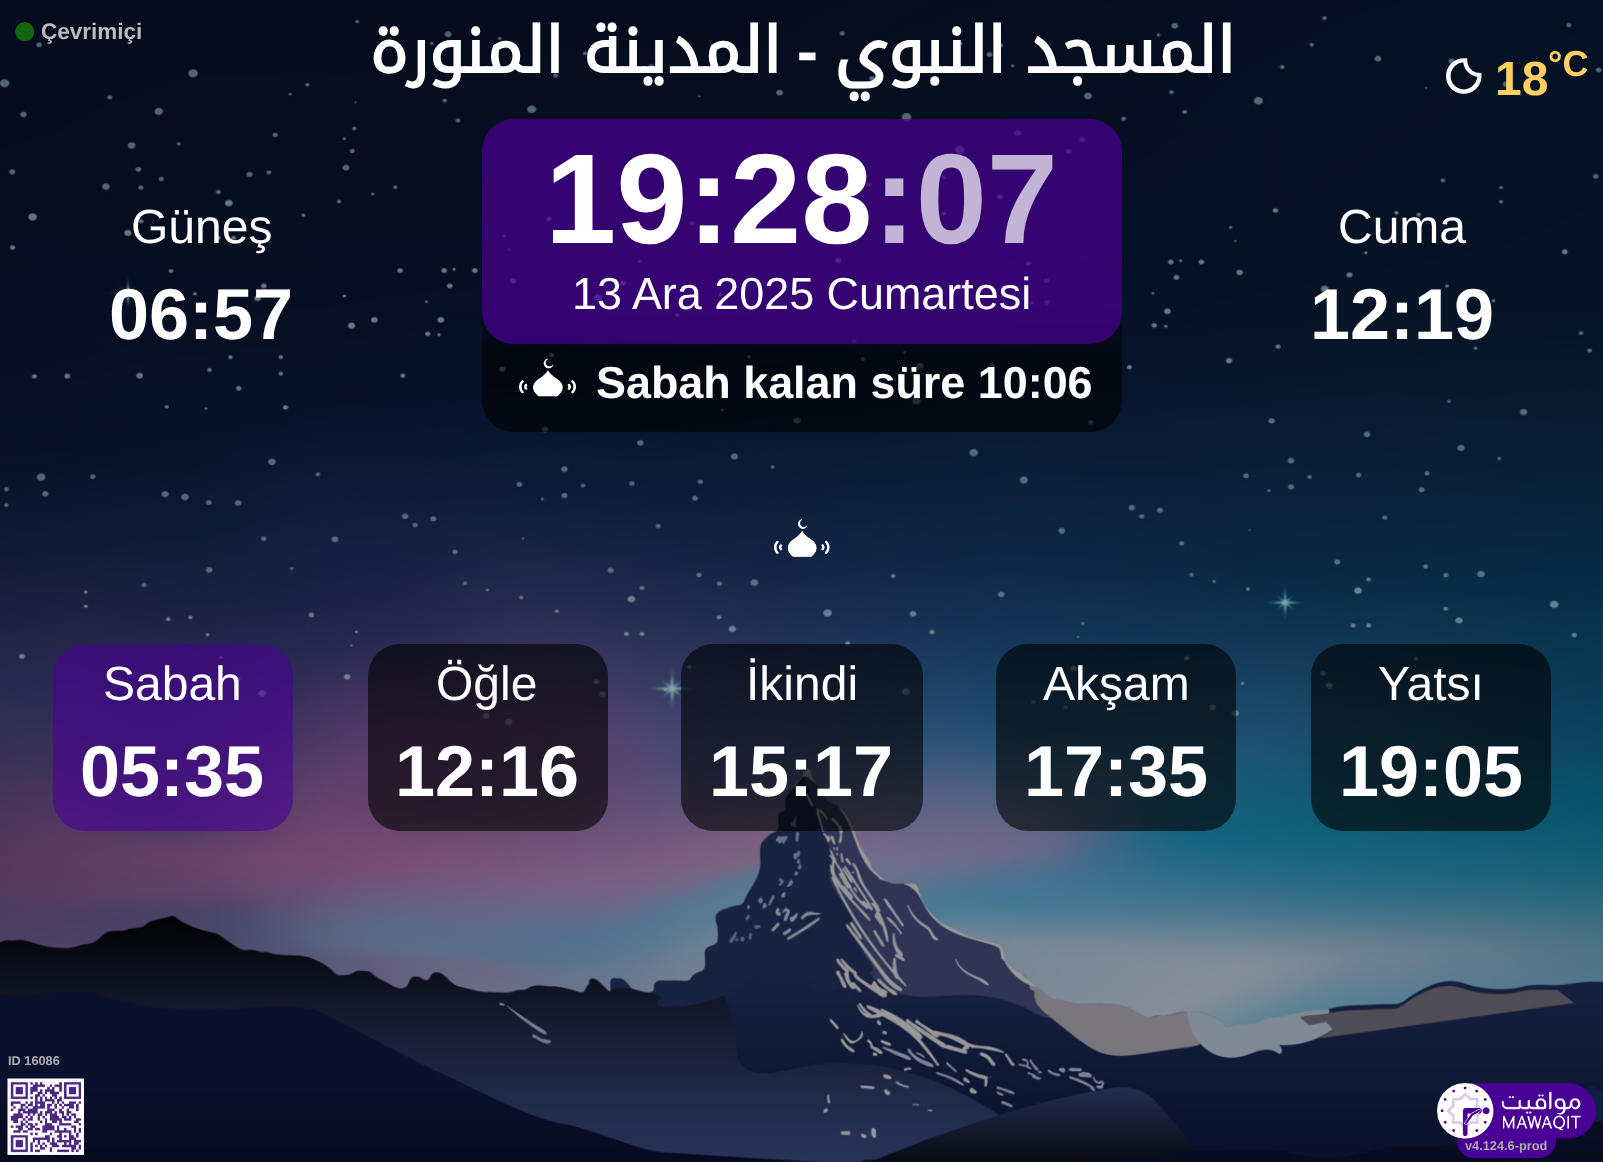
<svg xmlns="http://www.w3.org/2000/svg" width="1603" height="1162">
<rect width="100%" height="100%" fill="#fff"/>
<image x="0" y="0" width="1603" height="1162" href="media/1.png"/>
<path d="M18 25c9-9 22 4.5 13.5 13.5c-9 8.5-22-4.5-13.5-13.5z" fill="#126611"/>
<text x="41" y="39" style="font-family:Liberation Sans;font-size:22.5px;font-weight:bold;fill:#bdbbbb">Çevrimiçi</text>
<text x="781" y="73" word-spacing="-2" style="font-family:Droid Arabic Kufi;font-size:64px;font-weight:bold;direction:rtl;fill:#fff">المدينة المنورة</text>
<text x="818" y="73" style="font-family:Liberation Sans;font-size:64px;font-weight:bold;direction:rtl;fill:#fff">-</text>
<text x="1235" y="73" word-spacing="-2" style="font-family:Droid Arabic Kufi;font-size:64px;font-weight:bold;direction:rtl;fill:#fff">المسجد النبوي</text>
<image x="1446" y="58" width="36" height="36" href="media/2.png"/>
<text x="1495" y="95" style="font-family:Liberation Sans;font-size:48px;font-weight:bold;fill:#ffd05f">18</text>
<text x="1548" y="76" style="font-family:Liberation Sans;font-size:36px;font-weight:bold;fill:#ffd05f">°C</text>
<text x="131" y="243" style="font-family:Liberation Sans;font-size:48px;fill:#fff">Güneş</text>
<text x="109" y="339" style="font-family:Liberation Sans;font-size:72px;font-weight:bold;fill:#fff">06:57</text>
<rect x="482" y="119" width="640" height="225" rx="32" fill="#490094b3"/>
<text x="545" y="243" style="font-family:Liberation Sans;font-size:128px;font-weight:bold;fill:#fff">19:28</text>
<text x="873" y="243" style="font-family:Liberation Sans;font-size:128px;font-weight:bold;fill:#c2b4d5">:07</text>
<text x="572" y="309" style="font-family:Liberation Sans;font-size:44.9px;fill:#fff">13 Ara 2025 Cumartesi</text>
<image x="519" y="358" width="57" height="39" href="media/3.png"/>
<text x="596" y="398" style="font-family:Liberation Sans;font-size:44.9px;font-weight:bold;fill:#fff">Sabah kalan süre 10:06</text>
<image x="774" y="519" width="56" height="38" href="media/4.png"/>
<text x="1338" y="243" style="font-family:Liberation Sans;font-size:48px;fill:#fff">Cuma</text>
<text x="1310" y="339" style="font-family:Liberation Sans;font-size:72px;font-weight:bold;fill:#fff">12:19</text>
<rect x="53" y="644" width="240" height="187" rx="32" fill="#49009499"/>
<text x="103" y="700" style="font-family:Liberation Sans;font-size:48px;fill:#fff">Sabah</text>
<text x="80" y="796" style="font-family:Liberation Sans;font-size:72px;font-weight:bold;fill:#fff">05:35</text>
<rect x="368" y="644" width="240" height="187" rx="32" fill="#00000099"/>
<text x="436" y="700" style="font-family:Liberation Sans;font-size:48px;fill:#fff">Öğle</text>
<text x="395" y="796" style="font-family:Liberation Sans;font-size:72px;font-weight:bold;fill:#fff">12:16</text>
<rect x="681" y="644" width="242" height="187" rx="32" fill="#00000099"/>
<text x="746" y="700" style="font-family:Liberation Sans;font-size:48px;fill:#fff">İkindi</text>
<text x="709" y="796" style="font-family:Liberation Sans;font-size:72px;font-weight:bold;fill:#fff">15:17</text>
<rect x="996" y="644" width="240" height="187" rx="32" fill="#00000099"/>
<text x="1043" y="700" style="font-family:Liberation Sans;font-size:48px;fill:#fff">Akşam</text>
<text x="1024" y="796" style="font-family:Liberation Sans;font-size:72px;font-weight:bold;fill:#fff">17:35</text>
<rect x="1311" y="644" width="240" height="187" rx="32" fill="#00000099"/>
<text x="1378" y="700" style="font-family:Liberation Sans;font-size:48px;fill:#fff">Yatsı</text>
<text x="1339" y="796" style="font-family:Liberation Sans;font-size:72px;font-weight:bold;fill:#fff">19:05</text>
<text x="8" y="1065" style="font-family:Liberation Sans;font-size:12.75px;font-weight:bold;fill:#adadad">ID 16086</text>
<image x="7" y="1078" width="77" height="77" href="media/5.png"/>
<path d="M1457 1133h99v8c0 9.5-7.5 17-17 17h-65c-9.5 0-17-7.5-17-17z" fill="#490094"/>
<image x="1437" y="1083" width="159" height="56" href="media/6.png"/>
<text x="1465" y="1150" style="font-family:Liberation Sans;font-size:12.75px;font-weight:bold;fill:#adadad">v4.124.6-prod</text>
</svg>
